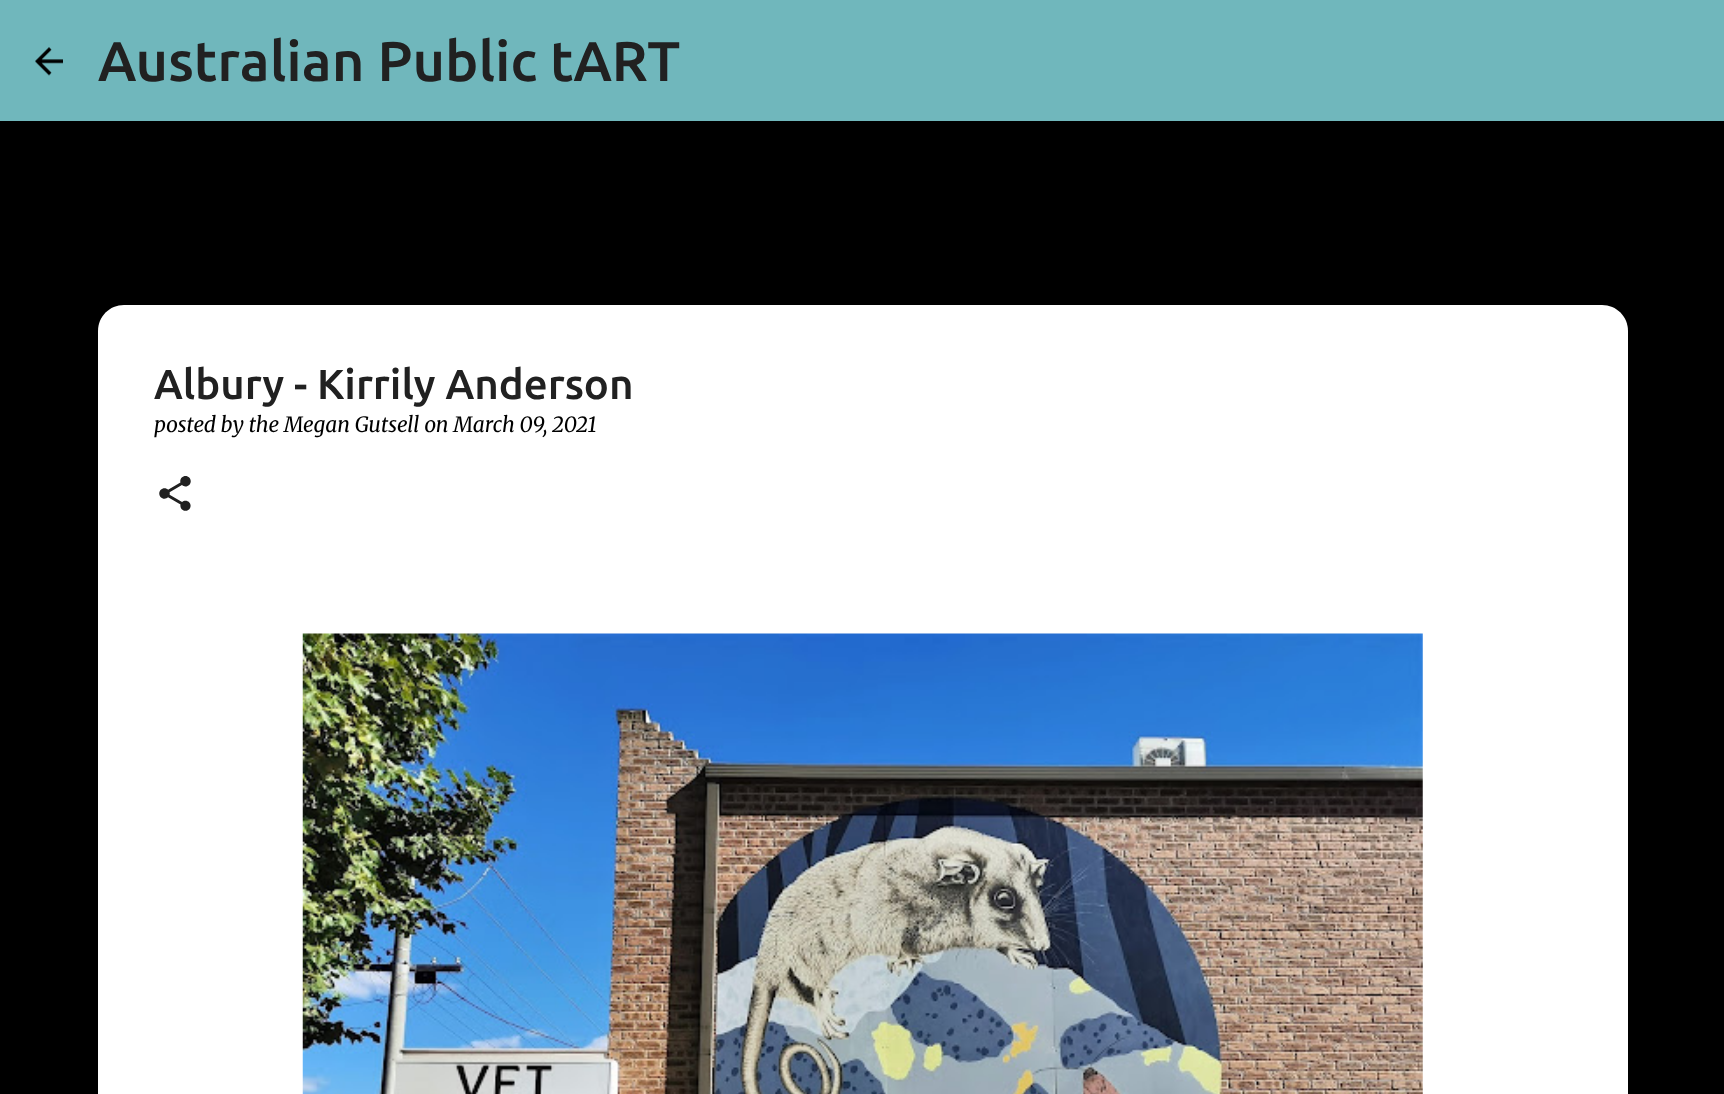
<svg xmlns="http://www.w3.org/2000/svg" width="1724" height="1094">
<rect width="100%" height="100%" fill="#000"/>
<rect width="1724" height="121" fill="#70b7bc"/>
<image x="35" y="47" width="28" height="29" href="media/1.png"/>
<text x="98" y="81" style="font-family:Ubuntu;font-size:56px;font-weight:500;fill:#212121">Australian Public tART</text>
<path d="M124 305h1478c14.5 0 26 11.5 26 26v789h-1530v-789c0-14.5 11.5-26 26-26z" fill="#fff"/>
<text x="154" y="399" style="font-family:Ubuntu;font-size:42px;font-weight:500;fill:#212121">Albury - Kirrily Anderson</text>
<text x="154" y="432" style="font-family:Merriweather;font-size:21px;font-style:italic;fill:#000">posted by the Megan Gutsell on March 09, 2021</text>
<image x="159" y="476" width="32" height="35" href="media/2.png"/>
<image x="302" y="633" width="1121" height="461" href="media/3.png"/>
</svg>
